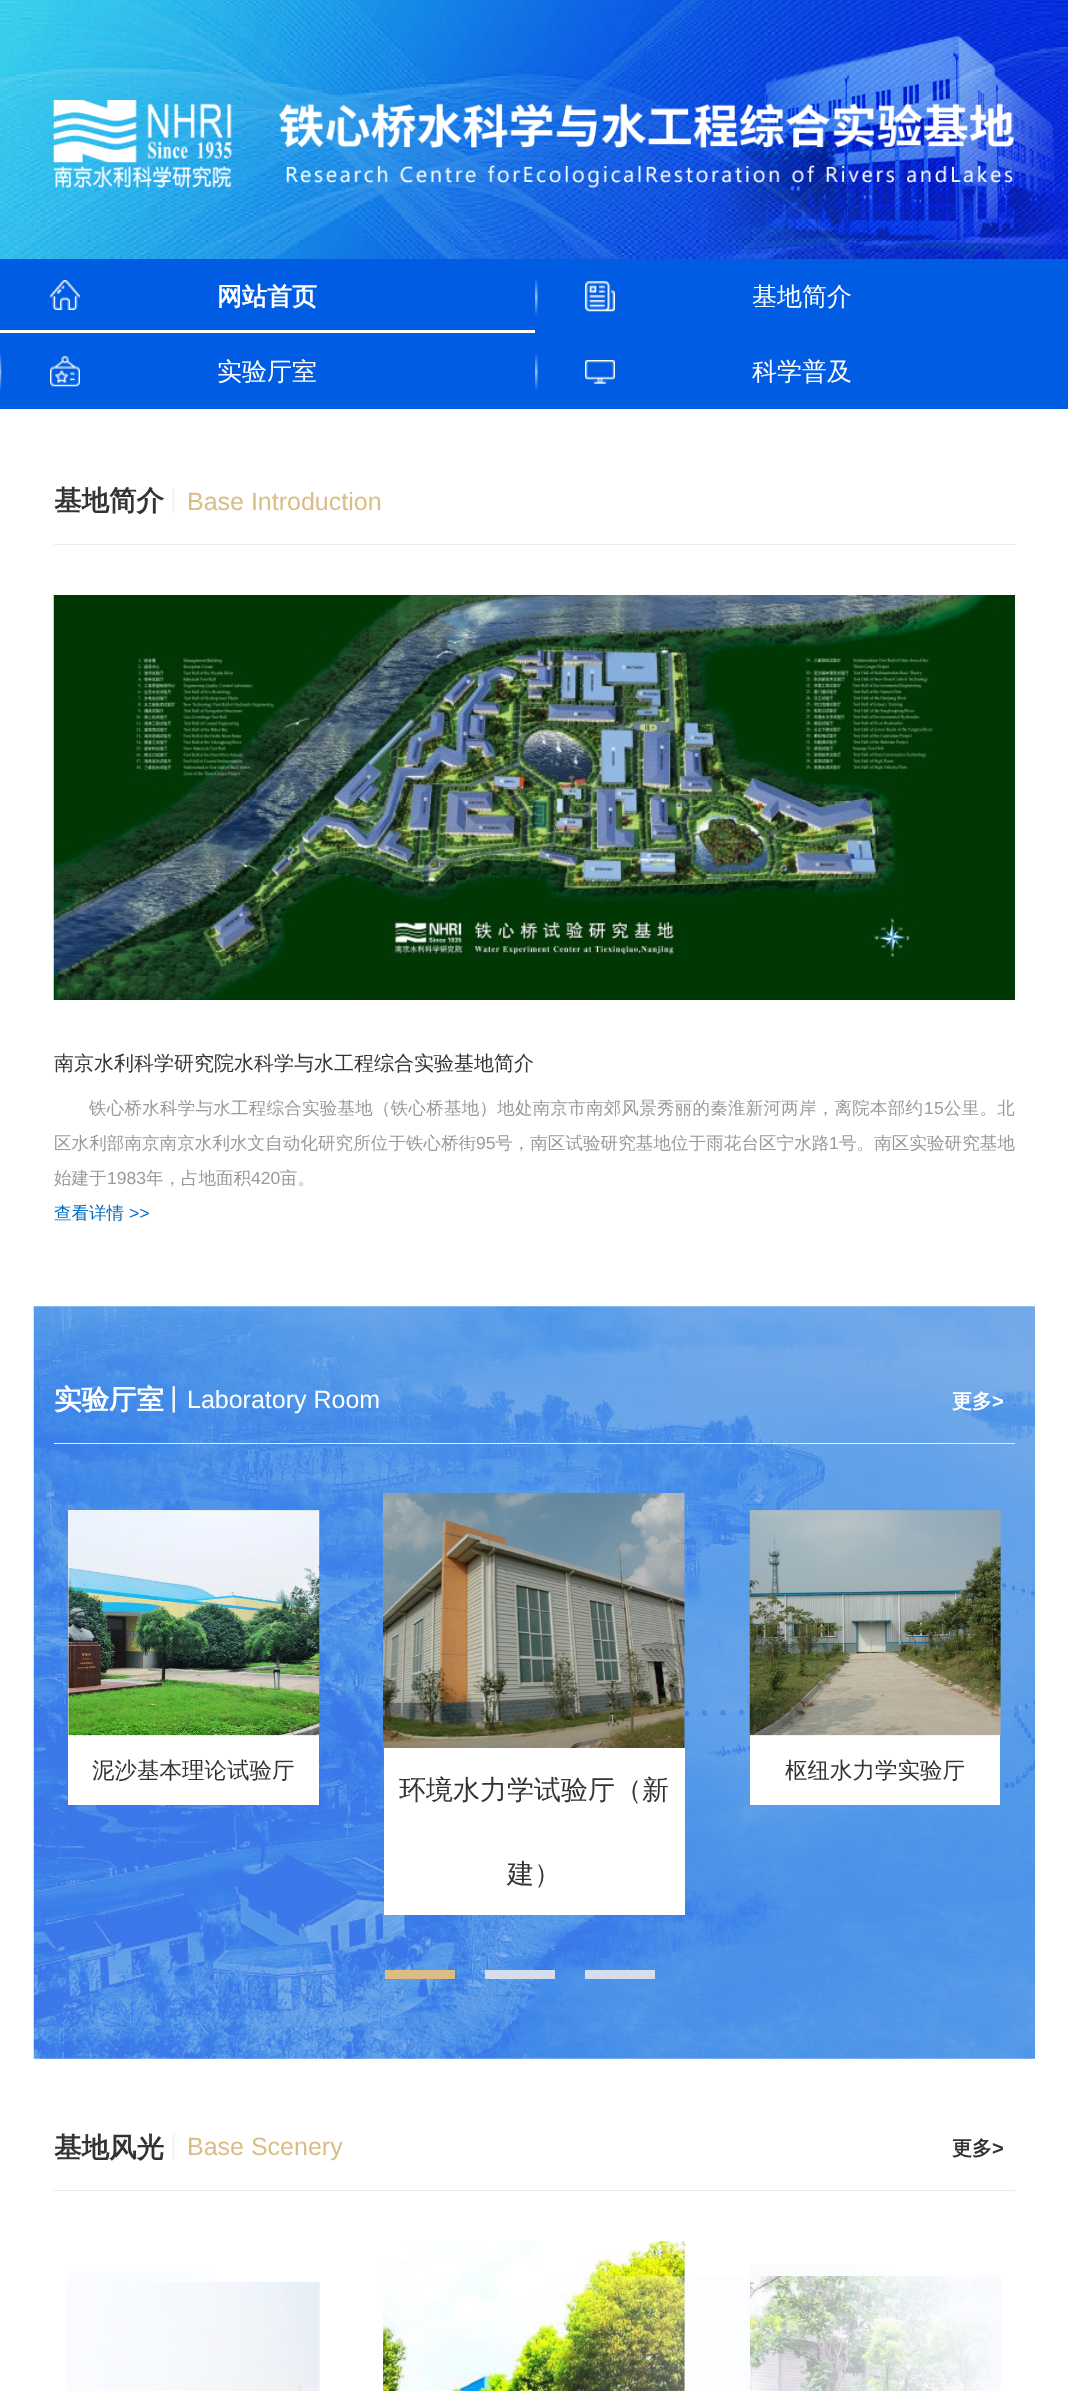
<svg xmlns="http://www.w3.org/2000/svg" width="1068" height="2391">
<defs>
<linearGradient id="g1" gradientUnits="userSpaceOnUse" x1="68" y1="1658" x2="319" y2="1658"><stop offset="0" stop-color="#f9fbff"/><stop offset="1" stop-color="#f9fbff" stop-opacity="0"/></linearGradient>
<linearGradient id="g2" gradientUnits="userSpaceOnUse" x1="68" y1="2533" x2="319" y2="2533"><stop offset="0" stop-color="#f9fbff"/><stop offset="1" stop-color="#fff"/></linearGradient>
<linearGradient id="g3" gradientUnits="userSpaceOnUse" x1="750" y1="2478" x2="1000" y2="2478"><stop offset="0" stop-color="#f9fbff"/><stop offset="1" stop-color="#fff"/></linearGradient>
</defs>
<rect width="100%" height="100%" fill="#fff"/>
<image x="0" y="0" width="1068" height="259" href="media/1.png"/>
<image x="53" y="100" width="962" height="88" href="media/2.png"/>
<rect y="259" width="1068" height="150" fill="#005de3"/>
<image x="50" y="280" width="30" height="30" href="media/3.png"/>
<rect y="330" width="535" height="3" fill="#fff"/>
<text x="217" y="305" style="font-family:WenQuanYi Zen Hei;font-size:25px;font-weight:bold;fill:#fff">网站首页</text>
<image x="535" y="278" width="3" height="38" href="media/4.png"/>
<image x="585" y="281" width="30" height="31" href="media/5.png"/>
<text x="752" y="305" style="font-family:WenQuanYi Zen Hei;font-size:25px;font-weight:500;fill:#fff">基地简介</text>
<image x="0" y="353" width="2" height="38" href="media/6.png"/>
<image x="50" y="356" width="30" height="31" href="media/7.png"/>
<text x="217" y="380" style="font-family:WenQuanYi Zen Hei;font-size:25px;font-weight:500;fill:#fff">实验厅室</text>
<image x="535" y="353" width="3" height="38" href="media/4.png"/>
<image x="585" y="360" width="30" height="24" href="media/8.png"/>
<text x="752" y="380" style="font-family:WenQuanYi Zen Hei;font-size:25px;font-weight:500;fill:#fff">科学普及</text>
<rect x="54" y="544" width="961" height="1" fill="#eaeaea"/>
<rect x="172" y="488" width="3" height="25" fill="#f5f5f5"/>
<text x="54" y="510" style="font-family:WenQuanYi Zen Hei;font-size:27.5px;font-weight:bold;fill:#333">基地简介</text>
<text x="187" y="510" style="font-family:Liberation Sans;font-size:25px;fill:#dabc85">Base Introduction</text>
<image x="53" y="595" width="962" height="405" href="media/9.png"/>
<text x="54" y="1070" style="font-family:WenQuanYi Zen Hei;font-size:20px;font-weight:500;fill:#333">南京水利科学研究院水科学与水工程综合实验基地简介</text>
<text x="89" y="1114" style="font-family:WenQuanYi Zen Hei;font-size:17.5px;font-weight:500;letter-spacing:0.25px;fill:#999">铁心桥水科学与水工程综合实验基地（铁心桥基地）地处南京市南郊风景秀丽的秦淮新河两岸，离院本部约</text>
<text x="924" y="1114" style="font-family:Liberation Sans;font-size:17.5px;letter-spacing:0.25px;fill:#999">15</text>
<text x="944" y="1114" style="font-family:WenQuanYi Zen Hei;font-size:17.5px;font-weight:500;letter-spacing:0.25px;fill:#999">公里。北</text>
<text x="54" y="1149" style="font-family:WenQuanYi Zen Hei;font-size:17.5px;font-weight:500;letter-spacing:0.1px;fill:#999">区水利部南京南京水利水文自动化研究所位于铁心桥街</text>
<text x="476" y="1149" style="font-family:Liberation Sans;font-size:17.5px;letter-spacing:0.1px;fill:#999">95</text>
<text x="495" y="1149" style="font-family:WenQuanYi Zen Hei;font-size:17.5px;font-weight:500;letter-spacing:0.1px;fill:#999">号，南区试验研究基地位于雨花台区宁水路</text>
<text x="829" y="1149" style="font-family:Liberation Sans;font-size:17.5px;letter-spacing:0.1px;fill:#999">1</text>
<text x="839" y="1149" style="font-family:WenQuanYi Zen Hei;font-size:17.5px;font-weight:500;letter-spacing:0.1px;fill:#999">号。南区实验研究基地</text>
<text x="54" y="1184" style="font-family:WenQuanYi Zen Hei;font-size:17.5px;font-weight:500;fill:#999">始建于</text>
<text x="107" y="1184" style="font-family:Liberation Sans;font-size:17.5px;fill:#999">1983</text>
<text x="146" y="1184" style="font-family:WenQuanYi Zen Hei;font-size:17.5px;font-weight:500;fill:#999">年，占地面积</text>
<text x="251" y="1184" style="font-family:Liberation Sans;font-size:17.5px;fill:#999">420</text>
<text x="280" y="1184" style="font-family:WenQuanYi Zen Hei;font-size:17.5px;font-weight:500;fill:#999">亩。</text>
<text x="54" y="1219" style="font-family:WenQuanYi Zen Hei;font-size:17.5px;font-weight:500;fill:#006ac1">查看详情</text>
<text x="129" y="1219" style="font-family:Liberation Sans;font-size:17.5px;fill:#006ac1">&gt;&gt;</text>
<image x="33" y="1306" width="1002" height="753" href="media/10.png"/>
<rect x="54" y="1443" width="961" height="1" fill="#eaeaea"/>
<image x="172" y="1386" width="3" height="27" href="media/11.png"/>
<text x="54" y="1409" style="font-family:WenQuanYi Zen Hei;font-size:27.5px;font-weight:bold;fill:#fff">实验厅室</text>
<text x="187" y="1408" style="font-family:Liberation Sans;font-size:25px;fill:#fff">Laboratory Room</text>
<text x="952" y="1408" style="font-family:WenQuanYi Zen Hei;font-size:20px;font-weight:bold;fill:#fff">更多</text>
<text x="992" y="1408" style="font-family:Liberation Sans;font-size:20px;font-weight:bold;fill:#fff">&gt;</text>
<rect x="68" y="1510" width="246" height="225" fill="url(#g1)"/>
<rect x="68" y="1735" width="251" height="70" fill="#fff"/>
<image x="68" y="1510" width="252" height="226" href="media/12.png"/>
<text x="92" y="1778" style="font-family:WenQuanYi Zen Hei;font-size:22.5px;font-weight:500;fill:#333">泥沙基本理论试验厅</text>
<rect x="750" y="1735" width="250" height="70" fill="#fff"/>
<image x="749" y="1510" width="252" height="226" href="media/13.png"/>
<text x="785" y="1778" style="font-family:WenQuanYi Zen Hei;font-size:22.5px;font-weight:500;fill:#333">枢纽水力学实验厅</text>
<image x="383" y="1493" width="302" height="255" href="media/14.png"/>
<rect x="384" y="1748" width="301" height="167" fill="#fff"/>
<text x="399" y="1799" style="font-family:WenQuanYi Zen Hei;font-size:27px;font-weight:500;fill:#333">环境水力学试验厅（新</text>
<text x="507" y="1883" style="font-family:WenQuanYi Zen Hei;font-size:27px;font-weight:500;fill:#333">建）</text>
<rect x="385" y="1970" width="70" height="9" fill="#dabc85"/>
<rect x="485" y="1970" width="70" height="9" fill="#d4deec"/>
<rect x="585" y="1970" width="70" height="9" fill="#d4deec"/>
<rect x="54" y="2190" width="961" height="1" fill="#eaeaea"/>
<rect x="172" y="2134" width="3" height="26" fill="#f5f5f5"/>
<text x="54" y="2157" style="font-family:WenQuanYi Zen Hei;font-size:27.5px;font-weight:bold;fill:#333">基地风光</text>
<text x="187" y="2155" style="font-family:Liberation Sans;font-size:25px;fill:#dabc85">Base Scenery</text>
<text x="952" y="2155" style="font-family:WenQuanYi Zen Hei;font-size:20px;font-weight:bold;fill:#333">更多</text>
<text x="992" y="2155" style="font-family:Liberation Sans;font-size:20px;font-weight:bold;fill:#333">&gt;</text>
<image x="383" y="2241" width="302" height="150" href="media/15.png"/>
<rect x="68" y="2271" width="146" height="11" fill="url(#g2)"/>
<image x="70" y="2282" width="250" height="109" href="media/17.png"/>
<image x="67" y="2282" width="253" height="109" href="media/16.png"/>
<rect x="750" y="2265" width="146" height="11" fill="url(#g3)"/>
<image x="750" y="2276" width="249" height="115" href="media/19.png"/>
<image x="524" y="2276" width="477" height="115" href="media/18.png"/>
</svg>
